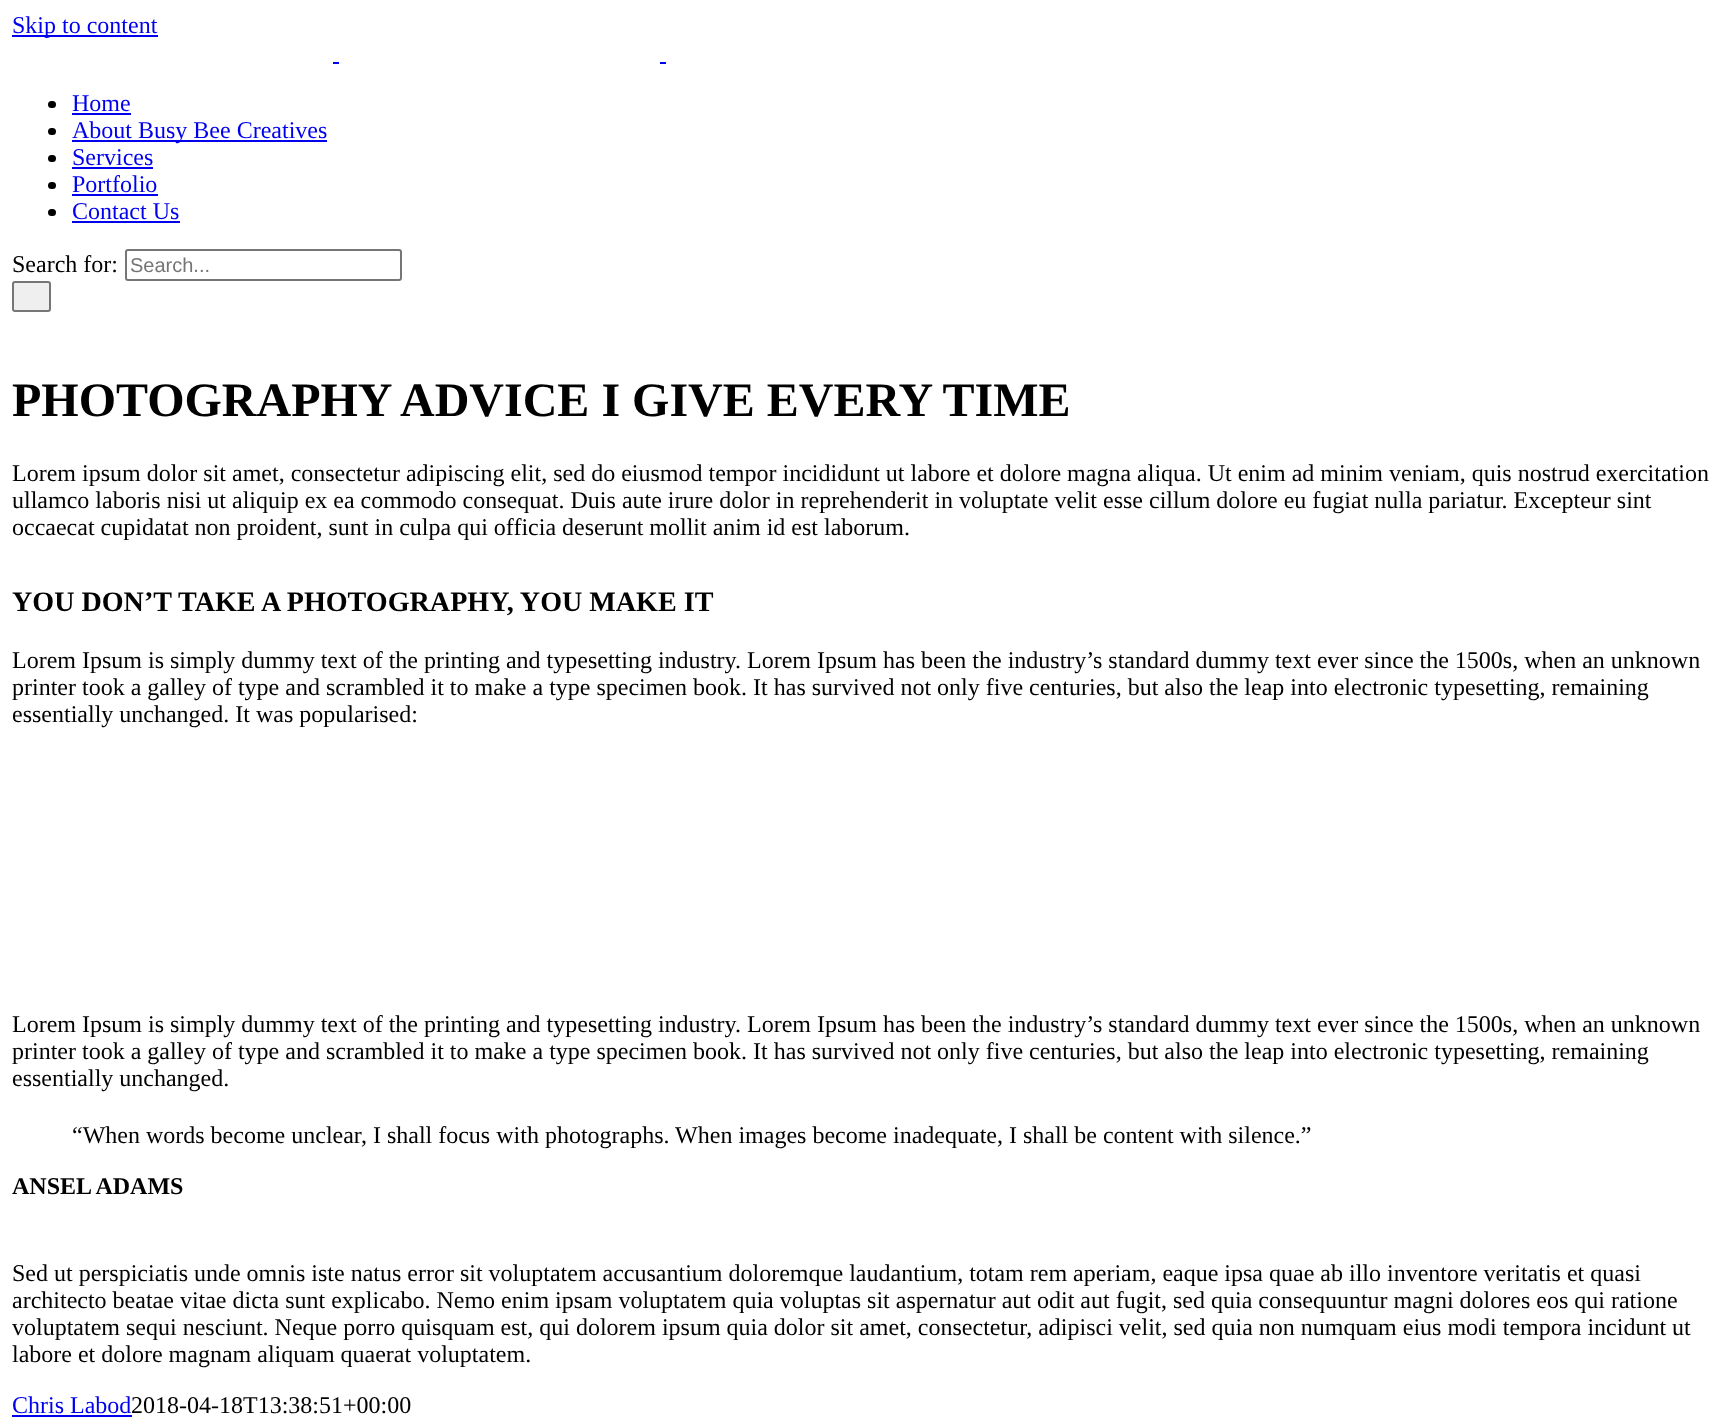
<svg xmlns="http://www.w3.org/2000/svg" width="1722" height="1422">
<rect width="100%" height="100%" fill="#fff"/>
<rect x="12" y="35" width="146" height="2" fill="#00e"/>
<text x="12" y="33" style="font-family:Liberation Serif;font-size:24px;fill:#00e">Skip to content</text>
<rect x="333" y="62" width="6" height="2" fill="#00e"/>
<rect x="660" y="62" width="6" height="2" fill="#00e"/>
<rect x="48" y="101" width="8" height="7" rx="3.5" fill="#000"/>
<text x="72" y="111" style="font-family:Liberation Serif;font-size:24px;fill:#00e">Home</text>
<rect x="72" y="113" width="59" height="2" fill="#00e"/>
<rect x="48" y="128" width="8" height="7" rx="3.5" fill="#000"/>
<rect x="72" y="140" width="255" height="2" fill="#00e"/>
<text x="72" y="138" style="font-family:Liberation Serif;font-size:24px;fill:#00e">About Busy Bee Creatives</text>
<rect x="48" y="155" width="8" height="7" rx="3.5" fill="#000"/>
<text x="72" y="165" style="font-family:Liberation Serif;font-size:24px;fill:#00e">Services</text>
<rect x="72" y="167" width="81" height="2" fill="#00e"/>
<rect x="48" y="182" width="8" height="7" rx="3.5" fill="#000"/>
<text x="72" y="192" style="font-family:Liberation Serif;font-size:24px;fill:#00e">Portfolio</text>
<rect x="72" y="194" width="86" height="2" fill="#00e"/>
<rect x="48" y="209" width="8" height="7" rx="3.5" fill="#000"/>
<text x="72" y="219" style="font-family:Liberation Serif;font-size:24px;fill:#00e">Contact Us</text>
<rect x="72" y="221" width="108" height="2" fill="#00e"/>
<text x="12" y="272" style="font-family:Liberation Serif;font-size:24px;fill:#000">Search for:</text>
<rect x="126" y="250" width="275" height="30" rx="2" fill="none" stroke="#767676" stroke-width="2"/>
<text x="130" y="272" style="font-family:Liberation Sans;font-size:20px;fill:#757575">Search...</text>
<rect x="13" y="282" width="37" height="29" rx="2" fill="#efefef" stroke="#767676" stroke-width="2"/>
<text x="12" y="416" style="font-family:Liberation Serif;font-size:48px;font-weight:bold;fill:#000">PHOTOGRAPHY ADVICE I GIVE EVERY TIME</text>
<text x="12" y="481" style="font-family:Liberation Serif;font-size:24px;fill:#000">Lorem ipsum dolor sit amet, consectetur adipiscing elit, sed do eiusmod tempor incididunt ut labore et dolore magna aliqua. Ut enim ad minim veniam, quis nostrud exercitation</text>
<text x="12" y="508" style="font-family:Liberation Serif;font-size:24px;fill:#000">ullamco laboris nisi ut aliquip ex ea commodo consequat. Duis aute irure dolor in reprehenderit in voluptate velit esse cillum dolore eu fugiat nulla pariatur. Excepteur sint</text>
<text x="12" y="535" style="font-family:Liberation Serif;font-size:24px;fill:#000">occaecat cupidatat non proident, sunt in culpa qui officia deserunt mollit anim id est laborum.</text>
<text x="12" y="611" style="font-family:Liberation Serif;font-size:28.1px;font-weight:bold;fill:#000">YOU DON’T TAKE A PHOTOGRAPHY, YOU MAKE IT</text>
<text x="12" y="668" style="font-family:Liberation Serif;font-size:24px;fill:#000">Lorem Ipsum is simply dummy text of the printing and typesetting industry. Lorem Ipsum has been the industry’s standard dummy text ever since the 1500s, when an unknown</text>
<text x="12" y="695" style="font-family:Liberation Serif;font-size:24px;fill:#000">printer took a galley of type and scrambled it to make a type specimen book. It has survived not only five centuries, but also the leap into electronic typesetting, remaining</text>
<text x="12" y="722" style="font-family:Liberation Serif;font-size:24px;fill:#000">essentially unchanged. It was popularised:</text>
<text x="12" y="1032" style="font-family:Liberation Serif;font-size:24px;fill:#000">Lorem Ipsum is simply dummy text of the printing and typesetting industry. Lorem Ipsum has been the industry’s standard dummy text ever since the 1500s, when an unknown</text>
<text x="12" y="1059" style="font-family:Liberation Serif;font-size:24px;fill:#000">printer took a galley of type and scrambled it to make a type specimen book. It has survived not only five centuries, but also the leap into electronic typesetting, remaining</text>
<text x="12" y="1086" style="font-family:Liberation Serif;font-size:24px;fill:#000">essentially unchanged.</text>
<text x="72" y="1143" style="font-family:Liberation Serif;font-size:24px;fill:#000">“When words become unclear, I shall focus with photographs. When images become inadequate, I shall be content with silence.”</text>
<text x="12" y="1194" style="font-family:Liberation Serif;font-size:24px;font-weight:bold;fill:#000">ANSEL ADAMS</text>
<text x="12" y="1281" style="font-family:Liberation Serif;font-size:24px;fill:#000">Sed ut perspiciatis unde omnis iste natus error sit voluptatem accusantium doloremque laudantium, totam rem aperiam, eaque ipsa quae ab illo inventore veritatis et quasi</text>
<text x="12" y="1308" style="font-family:Liberation Serif;font-size:24px;fill:#000">architecto beatae vitae dicta sunt explicabo. Nemo enim ipsam voluptatem quia voluptas sit aspernatur aut odit aut fugit, sed quia consequuntur magni dolores eos qui ratione</text>
<text x="12" y="1335" style="font-family:Liberation Serif;font-size:24px;fill:#000">voluptatem sequi nesciunt. Neque porro quisquam est, qui dolorem ipsum quia dolor sit amet, consectetur, adipisci velit, sed quia non numquam eius modi tempora incidunt ut</text>
<text x="12" y="1362" style="font-family:Liberation Serif;font-size:24px;fill:#000">labore et dolore magnam aliquam quaerat voluptatem.</text>
<text x="12" y="1413" style="font-family:Liberation Serif;font-size:24px;fill:#00e">Chris Labod</text>
<rect x="12" y="1415" width="120" height="2" fill="#00e"/>
<text x="131" y="1413" style="font-family:Liberation Serif;font-size:24px;fill:#000">2018-04-18T13:38:51+00:00</text>
</svg>
